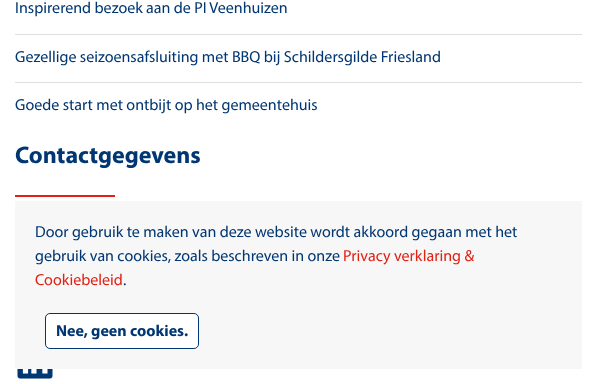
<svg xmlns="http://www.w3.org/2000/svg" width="597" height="384">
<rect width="100%" height="100%" fill="#fff"/>
<text x="15" y="13" style="font-family:Myriad;font-size:16px;fill:#003671">Inspirerend bezoek aan de PI Veenhuizen</text>
<rect x="15" y="34" width="567" height="1" fill="#dedee2"/>
<text x="15" y="62" style="font-family:Myriad;font-size:16px;fill:#003671">Gezellige seizoensafsluiting met BBQ bij Schildersgilde Friesland</text>
<rect x="15" y="82" width="567" height="1" fill="#dedee2"/>
<text x="15" y="110" style="font-family:Myriad;font-size:16px;fill:#003671">Goede start met ontbijt op het gemeentehuis</text>
<text x="15" y="163" style="font-family:Myriad;font-size:24px;font-weight:bold;fill:#003671">Contactgegevens</text>
<rect x="15" y="195" width="100" height="2" fill="#e12114"/>
<image x="17" y="369" width="36" height="10" href="media/1.png"/>
<rect x="15" y="201" width="567" height="168" fill="#f7f7f7"/>
<text x="35" y="237" style="font-family:Myriad;font-size:16px;fill:#003671">Door gebruik te maken van deze website wordt akkoord gegaan met het</text>
<text x="35" y="261" style="font-family:Myriad;font-size:16px;fill:#003671">gebruik van cookies, zoals beschreven in onze</text>
<text x="343" y="261" style="font-family:Myriad;font-size:16px;fill:#e12114">Privacy verklaring &amp;</text>
<text x="35" y="285" style="font-family:Myriad;font-size:16px;fill:#e12114">Cookiebeleid</text>
<text x="123" y="285" style="font-family:Myriad;font-size:16px;fill:#003671">.</text>
<rect x="45.5" y="313.5" width="153" height="35" rx="4.5" fill="#fff" stroke="#003671"/>
<text x="56" y="336" style="font-family:Myriad;font-size:16px;font-weight:bold;fill:#003671">Nee, geen cookies.</text>
</svg>
